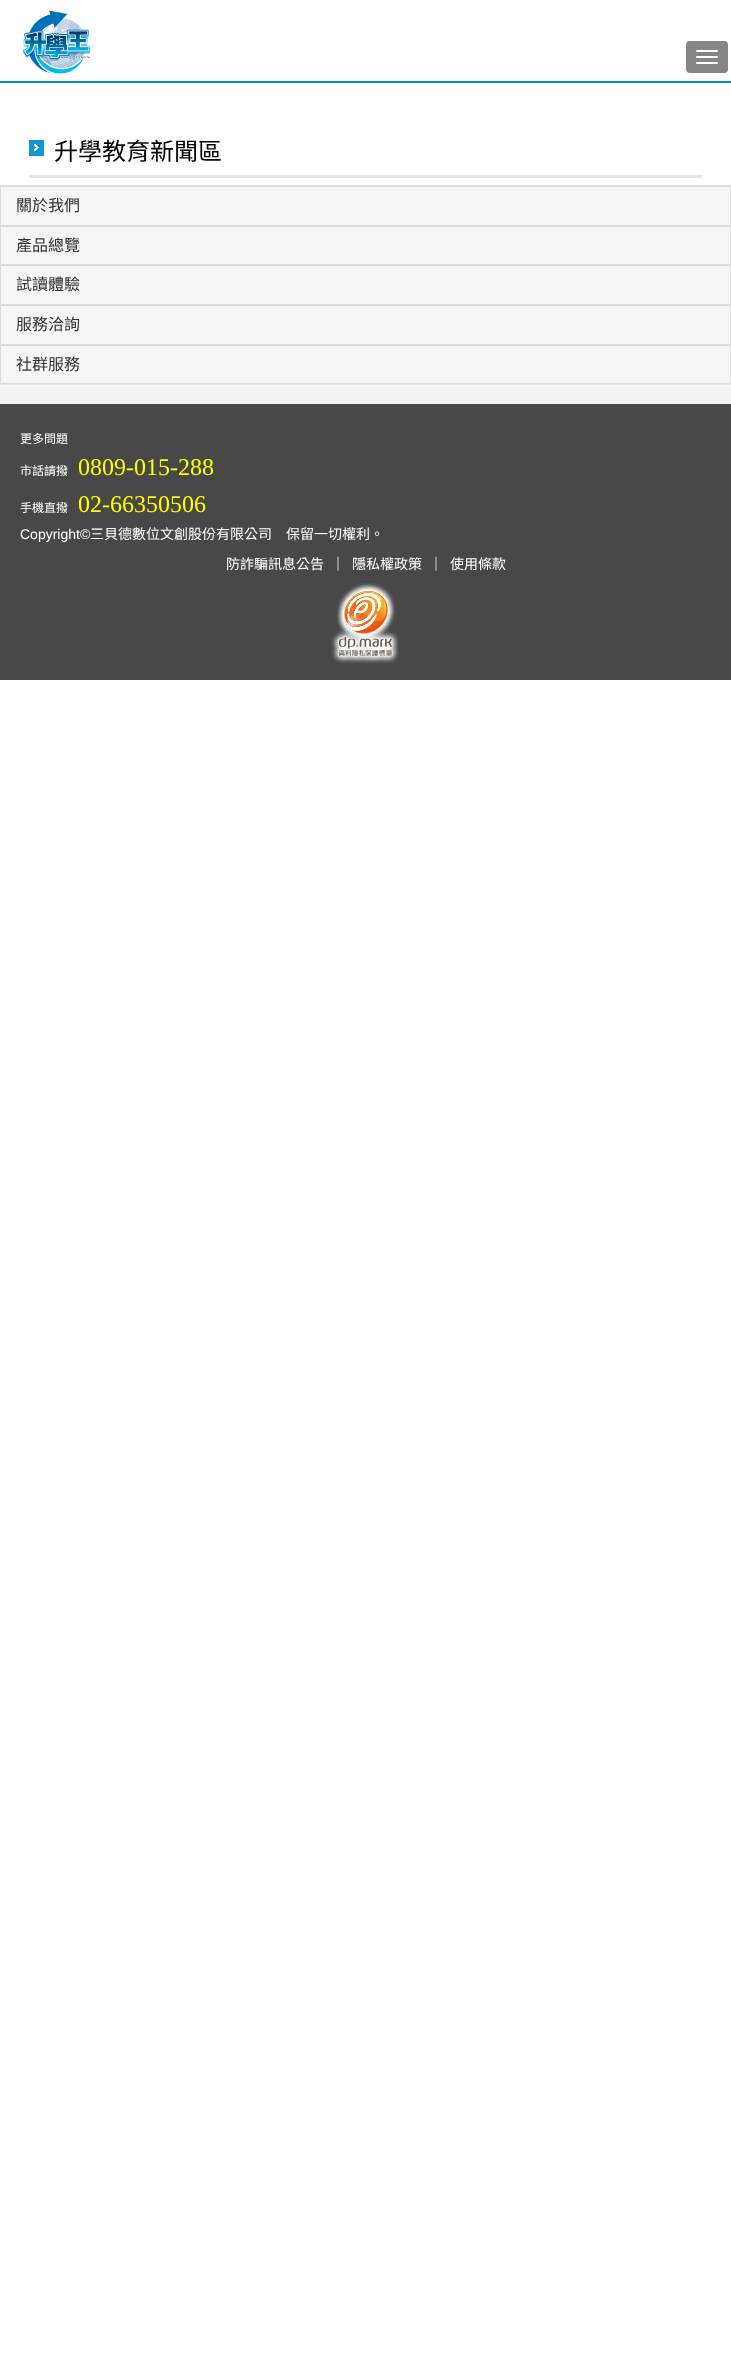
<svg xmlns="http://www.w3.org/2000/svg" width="731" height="2374">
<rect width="100%" height="100%" fill="#fff"/>
<image x="23" y="10" width="67" height="64" href="media/1.png"/>
<rect x="686" y="41" width="42" height="32" rx="4" fill="#858585"/>
<rect x="696" y="50" width="22" height="2" rx="1" fill="#fff"/>
<rect x="696" y="56" width="22" height="2" rx="1" fill="#fff"/>
<rect x="696" y="62" width="22" height="2" rx="1" fill="#fff"/>
<rect y="81" width="731" height="2" fill="#008dd4"/>
<image x="29" y="140" width="15" height="19" href="media/2.png"/>
<text x="54" y="160" style="font-family:Noto Sans CJK TC;font-size:24px;fill:#000">升學教育新聞區</text>
<rect x="29" y="175" width="673" height="3" fill="#e5e5e5"/>
<rect y="185" width="731" height="1" fill="#ddd"/>
<rect y="384" width="731" height="20" fill="#f3f3f3"/>
<rect x="0.5" y="186.5" width="730" height="39" fill="none" stroke="#ddd"/>
<path d="M4 187h723c1.5 0 3 1.5 3 3v35h-729v-35c0-1.5 1.5-3 3-3z" fill="#f5f5f5"/>
<text x="16" y="211" style="font-family:Noto Sans CJK TC;font-size:16px;fill:#333">關於我們</text>
<rect x="0.5" y="226.5" width="730" height="38" fill="none" stroke="#ddd"/>
<path d="M4 227h723c1.5 0 3 1.5 3 3v34h-729v-34c0-1.5 1.5-3 3-3z" fill="#f5f5f5"/>
<text x="16" y="251" style="font-family:Noto Sans CJK TC;font-size:16px;fill:#333">產品總覽</text>
<rect x="0.5" y="265.5" width="730" height="39" fill="none" stroke="#ddd"/>
<path d="M4 266h723c1.5 0 3 1.5 3 3v35h-729v-35c0-1.5 1.5-3 3-3z" fill="#f5f5f5"/>
<text x="16" y="290" style="font-family:Noto Sans CJK TC;font-size:16px;fill:#333">試讀體驗</text>
<rect x="0.5" y="305.5" width="730" height="39" fill="none" stroke="#ddd"/>
<path d="M4 306h723c1.5 0 3 1.5 3 3v35h-729v-35c0-1.5 1.5-3 3-3z" fill="#f5f5f5"/>
<text x="16" y="330" style="font-family:Noto Sans CJK TC;font-size:16px;fill:#333">服務洽詢</text>
<rect y="346" width="731" height="39" fill="#0000000d" filter="blur(0.5px)"/>
<rect x="1" y="346" width="729" height="3" fill="#fff"/>
<rect x="0.5" y="345.5" width="730" height="38" fill="none" stroke="#ddd"/>
<path d="M4 346h723c1.5 0 3 1.5 3 3v34h-729v-34c0-1.5 1.5-3 3-3z" fill="#f5f5f5"/>
<text x="16" y="370" style="font-family:Noto Sans CJK TC;font-size:16px;fill:#333">社群服務</text>
<rect y="404" width="731" height="276" fill="#484848"/>
<text x="20" y="443" style="font-family:Noto Sans CJK TC;font-size:12px;fill:#fff">更多問題</text>
<text x="20" y="475" style="font-family:Noto Sans CJK TC;font-size:12px;fill:#fff">市話請撥</text>
<text x="78" y="475" style="font-family:Liberation Serif;font-size:24px;fill:#fdfe04">0809-015-288</text>
<text x="20" y="512" style="font-family:Noto Sans CJK TC;font-size:12px;fill:#fff">手機直撥</text>
<text x="78" y="512" style="font-family:Liberation Serif;font-size:24px;fill:#fdfe04">02-66350506</text>
<text x="20" y="539" style="font-family:Liberation Sans;font-size:14px;fill:#fff">Copyright©</text>
<text x="90" y="539" style="font-family:Noto Sans CJK TC;font-size:14px;fill:#fff">三貝德數位文創股份有限公司　保留一切權利。</text>
<text x="226" y="569" style="font-family:Noto Sans CJK TC;font-size:14px;fill:#fff">防詐騙訊息公告</text>
<text x="331" y="569" style="font-family:Noto Sans CJK TC;font-size:14px;fill:#fff">｜</text>
<text x="352" y="569" style="font-family:Noto Sans CJK TC;font-size:14px;fill:#fff">隱私權政策</text>
<text x="429" y="569" style="font-family:Noto Sans CJK TC;font-size:14px;fill:#fff">｜</text>
<text x="450" y="569" style="font-family:Noto Sans CJK TC;font-size:14px;fill:#fff">使用條款</text>
<image x="331" y="583" width="68" height="81" href="media/3.png"/>
</svg>
